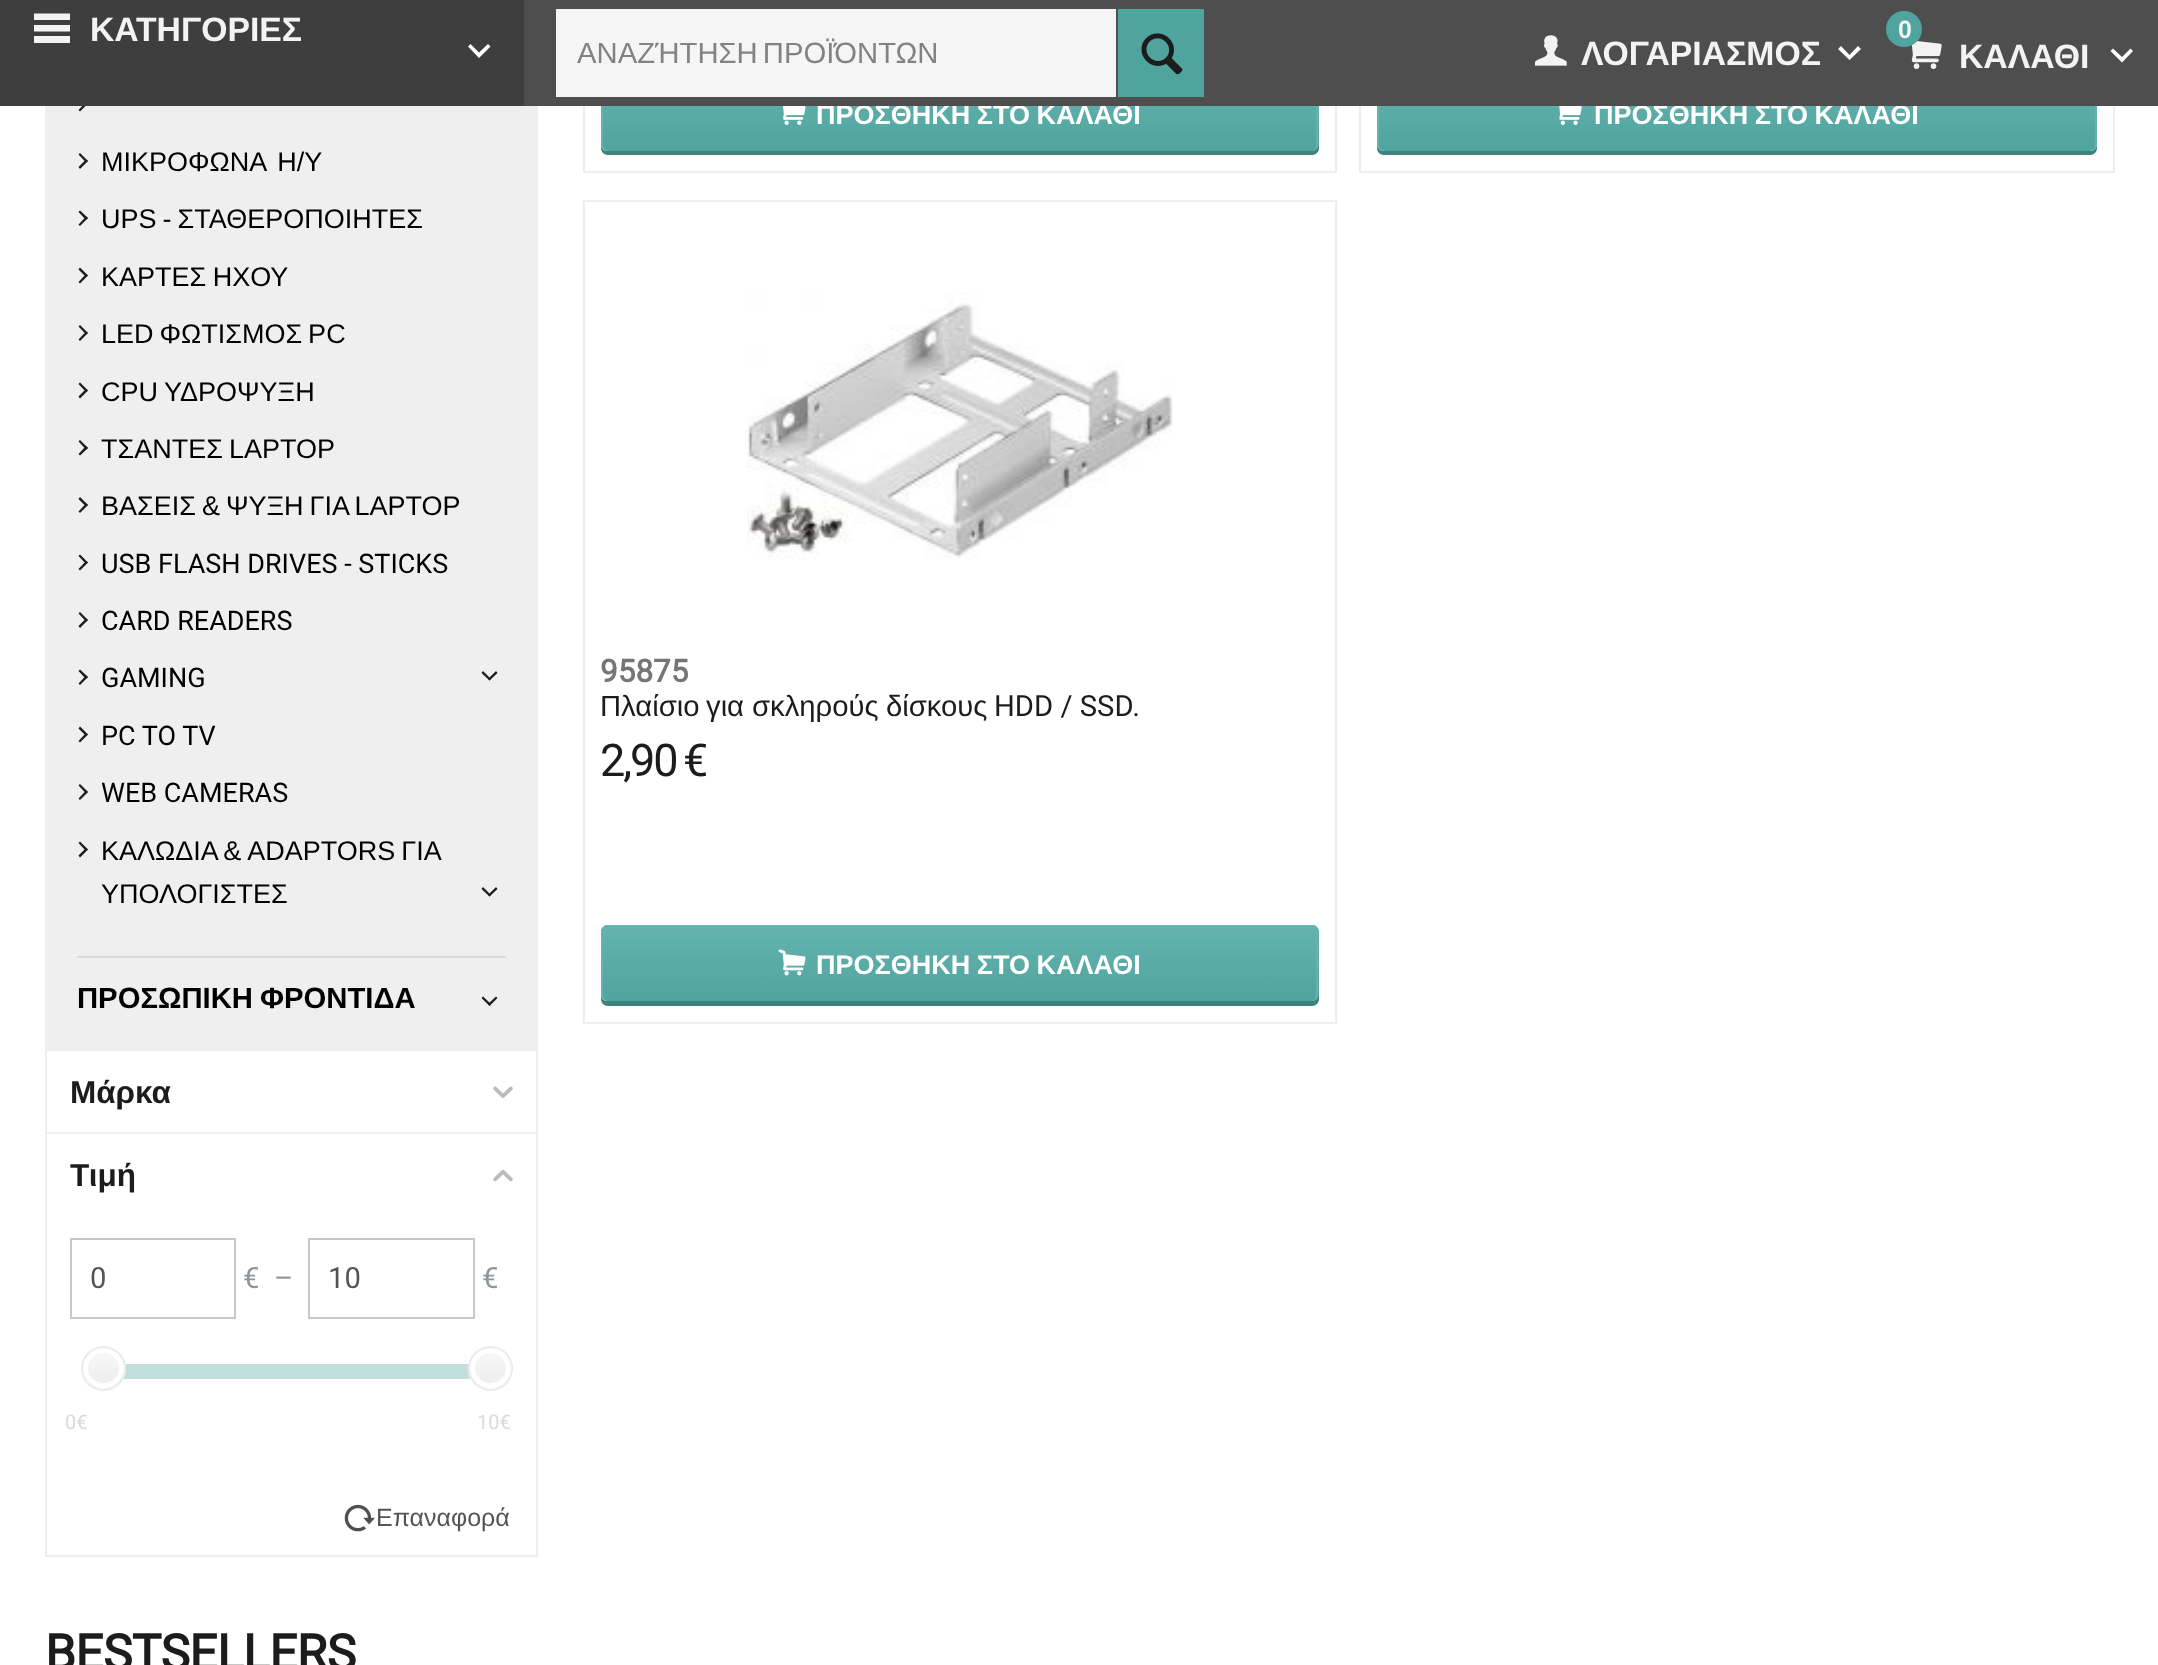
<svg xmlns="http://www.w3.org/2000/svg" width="2158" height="1665">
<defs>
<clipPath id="clip1"><rect x="601" y="74" width="718" height="77" rx="7"/></clipPath>
<linearGradient id="g1" gradientUnits="userSpaceOnUse" x1="960" y1="76" x2="960" y2="151"><stop offset="0" stop-color="#64b3ae"/><stop offset="1" stop-color="#50a49e"/></linearGradient>
<clipPath id="clip2"><rect x="1377" y="74" width="720" height="77" rx="7"/></clipPath>
<linearGradient id="g2" gradientUnits="userSpaceOnUse" x1="1737" y1="76" x2="1737" y2="151"><stop offset="0" stop-color="#64b3ae"/><stop offset="1" stop-color="#50a49e"/></linearGradient>
<clipPath id="clip3"><rect x="81" y="1346" width="45" height="45" rx="22.5"/></clipPath>
<linearGradient id="g3" gradientUnits="userSpaceOnUse" x1="104" y1="1348" x2="104" y2="1388"><stop offset="0" stop-color="#f9f9f9"/><stop offset="1" stop-color="#ececec"/></linearGradient>
<linearGradient id="g4" gradientUnits="userSpaceOnUse" x1="104" y1="1388" x2="104" y2="1429"><stop offset="0" stop-color="#f9f9f9"/><stop offset="1" stop-color="#ececec"/></linearGradient>
<clipPath id="clip4"><rect x="468" y="1346" width="45" height="45" rx="22.5"/></clipPath>
<linearGradient id="g5" gradientUnits="userSpaceOnUse" x1="491" y1="1348" x2="491" y2="1388"><stop offset="0" stop-color="#f9f9f9"/><stop offset="1" stop-color="#ececec"/></linearGradient>
<linearGradient id="g6" gradientUnits="userSpaceOnUse" x1="491" y1="1388" x2="491" y2="1429"><stop offset="0" stop-color="#f9f9f9"/><stop offset="1" stop-color="#ececec"/></linearGradient>
<clipPath id="clip5"><rect x="601" y="644" width="718" height="78"/></clipPath>
<clipPath id="clip6"><rect x="601" y="925" width="718" height="76" rx="7"/></clipPath>
<linearGradient id="g7" gradientUnits="userSpaceOnUse" x1="960" y1="853" x2="960" y2="927"><stop offset="0" stop-color="#64b3ae"/><stop offset="1" stop-color="#50a49e"/></linearGradient>
<linearGradient id="g8" gradientUnits="userSpaceOnUse" x1="960" y1="927" x2="960" y2="1001"><stop offset="0" stop-color="#64b3ae"/><stop offset="1" stop-color="#50a49e"/></linearGradient>
</defs>
<rect width="100%" height="100%" fill="#fff"/>
<rect x="584" y="-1" width="752" height="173" fill="none" stroke="#eee" stroke-width="2"/>
<path d="M601 146v2c0 4 3 7 7 7h704c4 0 7-3 7-7v-62l-1-3v61c0 4-3 7-6 7h-704c-4 0-6-2-7-5z" fill="#3f827d"/>
<rect x="601" y="74" width="718" height="77" rx="7" fill="#50a49e"/>
<g clip-path="url(#clip1)">
<path d="M601 77h718v67c0 4-3 7-7 7h-704c-4 0-7-3-7-7z" fill="url(#g1)"/>
</g>
<path d="M608 74h704c3 0 6 3 6 7v63c0 4-3 7-6 7h-704c-4 0-7-3-7-7v-63c0-4 3-7 7-7zm0 2h704c2 0 4 3 4 5v63c0 4-2 7-4 7h-704c-3 0-5-3-5-7v-63c0-2 2-5 5-5z" fill="#64b3ae" fill-rule="evenodd"/>
<text x="816" y="124" word-spacing="-1" style="font-family:Liberation Sans;font-size:27px;font-weight:bold;fill:#fff">ΠΡΟΣΘΗΚΗ ΣΤΟ ΚΑΛΑΘΙ</text>
<rect x="1360" y="-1" width="754" height="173" fill="none" stroke="#eee" stroke-width="2"/>
<path d="M1377 144v4c0 4 3 7 7 7h706c4 0 7-3 7-7v-4c0 4-3 7-7 7h-706c-4 0-7-3-7-7z" fill="#3f827d"/>
<g clip-path="url(#clip2)">
<path d="M1377 77h720v67c0 4-3 7-7 7h-706c-4 0-7-3-7-7z" fill="url(#g2)"/>
</g>
<path d="M1384 74h706c4 0 7 3 7 7v63c0 4-3 7-7 7h-706c-4 0-7-3-7-7v-63c0-4 3-7 7-7zm0 2h706c3 0 5 3 5 5v63c0 4-2 7-5 7h-706c-3 0-5-3-5-7v-63c0-2 2-5 5-5z" fill="#64b3ae" fill-rule="evenodd"/>
<text x="1594" y="124" word-spacing="-1" style="font-family:Liberation Sans;font-size:27px;font-weight:bold;fill:#fff">ΠΡΟΣΘΗΚΗ ΣΤΟ ΚΑΛΑΘΙ</text>
<rect x="524" width="1634" height="106" fill="#4e4e4f"/>
<rect x="45" y="106" width="493" height="943" fill="#efefef"/>
<path d="M78.5 110l7.5-8l2 1.5l-8 8z" fill="#1c1c1c"/>
<rect width="524" height="106" fill="#3e3e3f"/>
<path d="M34 13.5h36v6.5h-36zm0 11.5h36v6.5h-36zm0 11h36v7h-36z" fill="#f3f3f3"/>
<text x="90" y="41" style="font-family:Liberation Sans;font-size:33.75px;font-weight:bold;fill:#f3f3f3">ΚΑΤΗΓΟΡΙΕΣ</text>
<path d="M488 44l-9 8.5l-8.5-8.5l-2.5 2.5l11 11.5l11.5-11.5z" fill="#fff"/>
<rect x="556" y="9" width="560" height="88" fill="#f5f5f5"/>
<text x="577" y="63" word-spacing="-3" style="font-family:Liberation Sans;font-size:29.25px;fill:#828282">ΑΝΑΖΉΤΗΣΗ ΠΡΟΪΌΝΤΩΝ</text>
<rect x="1118" y="9" width="86" height="88" fill="#50a49e"/>
<image x="1141" y="33" width="42" height="42" href="media/1.png"/>
<image x="1535" y="35" width="32" height="31" href="media/2.png"/>
<text x="1581" y="65" style="font-family:Liberation Sans;font-size:33.75px;font-weight:bold;fill:#f3f3f3">ΛΟΓΑΡΙΑΣΜΟΣ</text>
<path d="M1858 46l-8.5 9l-8.5-9l-3 3l11.5 11l11.5-11z" fill="#fff"/>
<image x="1911" y="41" width="31" height="28" href="media/3.png"/>
<circle cx="1904" cy="29" r="18" fill="#50a49e"/>
<text x="1898" y="38" style="font-family:Liberation Sans;font-size:25px;font-weight:bold;fill:#f3f3f3">0</text>
<text x="1959" y="68" style="font-family:Liberation Sans;font-size:33.75px;font-weight:bold;fill:#f3f3f3">ΚΑΛΑΘΙ</text>
<path d="M2130.5 48.5l-8.5 8.5l-9-8.5l-2.5 2.5l11.5 11.5l11-11.5z" fill="#fff"/>
<rect x="77" y="956" width="429" height="2" fill="#dadada"/>
<path d="M78.5 154.5l1.5-1.5l8 8l-2 1.5z" fill="#1c1c1c"/>
<path d="M78.5 167l7.5-7.5l2 1.5l-8 8z" fill="#1c1c1c"/>
<text x="101" y="171" word-spacing="4" style="font-family:Liberation Sans;font-size:27px;fill:#000">ΜΙΚΡΟΦΩΝΑ Η/Υ</text>
<path d="M78.5 212l1.5-1.5l8 7.5l-2 2z" fill="#1c1c1c"/>
<path d="M78.5 224.5l7.5-8l2 1.5l-8 8z" fill="#1c1c1c"/>
<text x="101" y="228" word-spacing="-1.5" style="font-family:Liberation Sans;font-size:27px;fill:#000">UPS - ΣΤΑΘΕΡΟΠΟΙΗΤΕΣ</text>
<path d="M78.5 269.5l1.5-2l8 8l-2 1.5z" fill="#1c1c1c"/>
<path d="M78.5 282l7.5-8l2 1.5l-8 8z" fill="#1c1c1c"/>
<text x="101" y="286" word-spacing="-1" style="font-family:Liberation Sans;font-size:27px;fill:#000">ΚΑΡΤΕΣ ΗΧΟΥ</text>
<path d="M78.5 326.5l1.5-1.5l8 8l-2 1.5z" fill="#1c1c1c"/>
<path d="M78.5 339.5l7.5-8l2 1.5l-8 8z" fill="#1c1c1c"/>
<text x="101" y="343" word-spacing="-1.5" style="font-family:Liberation Sans;font-size:27px;fill:#000">LED ΦΩΤΙΣΜΟΣ PC</text>
<path d="M78.5 384l1.5-1.5l8 8l-2 1.5z" fill="#1c1c1c"/>
<path d="M78.5 396.5l7.5-7.5l2 1.5l-8 8z" fill="#1c1c1c"/>
<text x="101" y="401" word-spacing="-1.5" style="font-family:Liberation Sans;font-size:27px;fill:#000">CPU ΥΔΡΟΨΥΞΗ</text>
<path d="M78.5 441.5l1.5-1.5l8 8l-2 1.5z" fill="#1c1c1c"/>
<path d="M78.5 454l7.5-8l2 2l-8 7.5z" fill="#1c1c1c"/>
<text x="101" y="458" word-spacing="-1.5" style="font-family:Liberation Sans;font-size:27px;fill:#000">ΤΣΑΝΤΕΣ LAPTOP</text>
<path d="M78.5 499l1.5-2l8 8l-2 1.5z" fill="#1c1c1c"/>
<path d="M78.5 511.5l7.5-8l2 1.5l-8 8z" fill="#1c1c1c"/>
<text x="101" y="515" word-spacing="-1.5" style="font-family:Liberation Sans;font-size:27px;fill:#000">ΒΑΣΕΙΣ &amp; ΨΥΞΗ ΓΙΑ LAPTOP</text>
<path d="M78.5 556l1.5-1.5l8 8l-2 1.5z" fill="#1c1c1c"/>
<path d="M78.5 569l7.5-8l2 1.5l-8 8z" fill="#1c1c1c"/>
<text x="101" y="573" style="font-family:Roboto;font-size:27px;fill:#000">USB FLASH DRIVES - STICKS</text>
<path d="M78.5 613.5l1.5-1.5l8 8l-2 1.5z" fill="#1c1c1c"/>
<path d="M78.5 626l7.5-7.5l2 1.5l-8 8z" fill="#1c1c1c"/>
<text x="101" y="630" style="font-family:Roboto;font-size:27px;fill:#000">CARD READERS</text>
<path d="M78.5 671l1.5-1.5l8 7.5l-2 2z" fill="#1c1c1c"/>
<path d="M78.5 683.5l7.5-8l2 1.5l-8 8z" fill="#1c1c1c"/>
<text x="101" y="687" style="font-family:Roboto;font-size:27px;fill:#000">GAMING</text>
<path d="M496 671l1.5 2l-8 7.5l-1.5-1.5z" fill="#1c1c1c"/>
<path d="M483 671l8 8l-1.5 1.5l-8-7.5z" fill="#1c1c1c"/>
<path d="M78.5 728.5l1.5-2l8 8l-2 1.5z" fill="#1c1c1c"/>
<path d="M78.5 741l7.5-8l2 1.5l-8 8z" fill="#1c1c1c"/>
<text x="101" y="745" style="font-family:Roboto;font-size:27px;fill:#000">PC TO TV</text>
<path d="M78.5 785.5l1.5-1.5l8 8l-2 1.5z" fill="#1c1c1c"/>
<path d="M78.5 798.5l7.5-8l2 1.5l-8 8z" fill="#1c1c1c"/>
<text x="101" y="802" style="font-family:Roboto;font-size:27px;fill:#000">WEB CAMERAS</text>
<path d="M78.5 843l1.5-1.5l8 8l-2 1.5z" fill="#1c1c1c"/>
<path d="M78.5 855.5l7.5-7.5l2 1.5l-8 8z" fill="#1c1c1c"/>
<text x="101" y="860" word-spacing="-1.5" style="font-family:Liberation Sans;font-size:27px;fill:#000">ΚΑΛΩΔΙΑ &amp; ADAPTORS ΓΙΑ</text>
<text x="101" y="903" style="font-family:Liberation Sans;font-size:27px;fill:#000">ΥΠΟΛΟΓΙΣΤΕΣ</text>
<path d="M496 887l1.5 2l-8 7.5l-1.5-1.5z" fill="#1c1c1c"/>
<path d="M483 887l8 8l-1.5 1.5l-8-7.5z" fill="#1c1c1c"/>
<text x="77" y="1008" word-spacing="-1" style="font-family:Liberation Sans;font-size:29.25px;font-weight:bold;fill:#000">ΠΡΟΣΩΠΙΚΗ ΦΡΟΝΤΙΔΑ</text>
<path d="M496 996.5l1.5 1.5l-8 8l-1.5-2z" fill="#1c1c1c"/>
<path d="M483 996.5l8 7.5l-1.5 2l-8-8z" fill="#1c1c1c"/>
<rect x="46" y="1050" width="491" height="506" fill="none" stroke="#eee" stroke-width="2"/>
<text x="70" y="1103" style="font-family:Liberation Sans;font-size:31.5px;font-weight:bold;fill:#1c1c1c">Μάρκα</text>
<image x="493" y="1086" width="20" height="12" href="media/4.png"/>
<rect x="47" y="1132" width="489" height="2" fill="#eee"/>
<text x="70" y="1186" style="font-family:Liberation Sans;font-size:31.5px;font-weight:bold;fill:#1c1c1c">Τιμή</text>
<image x="493" y="1169" width="20" height="13" href="media/5.png"/>
<rect x="71" y="1239" width="164" height="79" fill="none" stroke="#c8c8c8" stroke-width="2"/>
<text x="90" y="1288" style="font-family:Roboto;font-size:29.25px;fill:#545454">0</text>
<text x="243" y="1288" style="font-family:Roboto;font-size:29.25px;fill:#909598">€</text>
<text x="274" y="1288" style="font-family:Roboto;font-size:29.25px;fill:#909598">–</text>
<rect x="309" y="1239" width="165" height="79" fill="none" stroke="#c8c8c8" stroke-width="2"/>
<text x="328" y="1288" style="font-family:Roboto;font-size:29.25px;fill:#545454">10</text>
<text x="482" y="1288" style="font-family:Roboto;font-size:29.25px;fill:#909598">€</text>
<rect x="123" y="1364" width="348" height="15" fill="#c2dfdd"/>
<g clip-path="url(#clip3)">
<rect x="81" y="1348" width="45" height="40" fill="url(#g3)"/>
<rect x="92" y="1388" width="23" height="3" fill="url(#g4)"/>
</g>
<rect x="85.5" y="1350.5" width="36" height="35" rx="17.5" fill="none" stroke="#fff" stroke-width="5"/>
<circle cx="103.5" cy="1368.5" r="21.5" fill="none" stroke="#ececec" stroke-width="2"/>
<g clip-path="url(#clip4)">
<rect x="468" y="1348" width="45" height="40" fill="url(#g5)"/>
<rect x="479" y="1388" width="23" height="3" fill="url(#g6)"/>
</g>
<rect x="472.5" y="1350.5" width="36" height="35" rx="17.5" fill="none" stroke="#fff" stroke-width="5"/>
<circle cx="490.5" cy="1368.5" r="21.5" fill="none" stroke="#ececec" stroke-width="2"/>
<text x="65" y="1429" style="font-family:Roboto;font-size:20px;fill:#d8dadb">0€</text>
<text x="477" y="1429" style="font-family:Roboto;font-size:20px;fill:#d8dadb">10€</text>
<image x="344" y="1504" width="31" height="28" href="media/6.png"/>
<text x="376" y="1526" style="font-family:Liberation Sans;font-size:25px;fill:#545454">Επαναφορά</text>
<text x="45" y="1670" style="font-family:Roboto;font-size:49.5px;font-weight:bold;letter-spacing:-0.5px;fill:#1c1c1c">BESTSELLERS</text>
<image x="783" y="106" width="23" height="19" href="media/7.png"/>
<image x="1559" y="106" width="23" height="19" href="media/8.png"/>
<rect x="584" y="201" width="752" height="822" fill="none" stroke="#eee" stroke-width="2"/>
<image x="747" y="292" width="426" height="268" href="media/9.png"/>
<text x="600" y="682" style="font-family:Roboto;font-size:31.5px;font-weight:bold;fill:#757575">95875</text>
<text x="600" y="716" style="font-family:Liberation Sans;font-size:29.25px;fill:#1c1c1c">Πλαίσιο</text>
<text x="706" y="716" style="font-family:Liberation Sans;font-size:29.25px;fill:#1c1c1c">για</text>
<g clip-path="url(#clip5)">
<text x="752" y="716" style="font-family:Liberation Sans;font-size:29.25px;fill:#1c1c1c">σκληρούς</text>
</g>
<text x="886" y="716" style="font-family:Liberation Sans;font-size:29.25px;fill:#1c1c1c">δίσκους</text>
<text x="994" y="716" style="font-family:Roboto;font-size:29.25px;fill:#1c1c1c">HDD / SSD.</text>
<text x="600" y="776" style="font-family:Roboto;font-size:45px;letter-spacing:-2px;fill:#1c1c1c">2,90</text>
<text x="683" y="776" style="font-family:Roboto;font-size:45px;letter-spacing:-2px;fill:#1c1c1c">€</text>
<path d="M601 996v3c0 4 3 7 7 7h704c4 0 7-3 7-7v-63l-1-3v61c0 4-3 7-6 7h-704c-4 0-6-2-7-5z" fill="#3f827d"/>
<rect x="601" y="925" width="718" height="76" rx="7" fill="#50a49e"/>
<g clip-path="url(#clip6)">
<rect x="601" y="925" width="718" height="2" fill="url(#g7)"/>
<path d="M601 927h718v67c0 4-3 7-7 7h-704c-4 0-7-3-7-7z" fill="url(#g8)"/>
</g>
<path d="M608 925h704c3 0 6 3 6 7v62c0 4-3 7-6 7h-704c-4 0-7-3-7-7v-62c0-4 3-7 7-7zm0 2h704c2 0 4 2 4 5v62c0 4-2 7-4 7h-704c-3 0-5-3-5-7v-62c0-3 2-5 5-5z" fill="#64b3ae" fill-rule="evenodd"/>
<image x="778" y="949" width="28" height="27" href="media/10.png"/>
<text x="816" y="974" word-spacing="-1" style="font-family:Liberation Sans;font-size:27px;font-weight:bold;fill:#fff">ΠΡΟΣΘΗΚΗ ΣΤΟ ΚΑΛΑΘΙ</text>
</svg>
